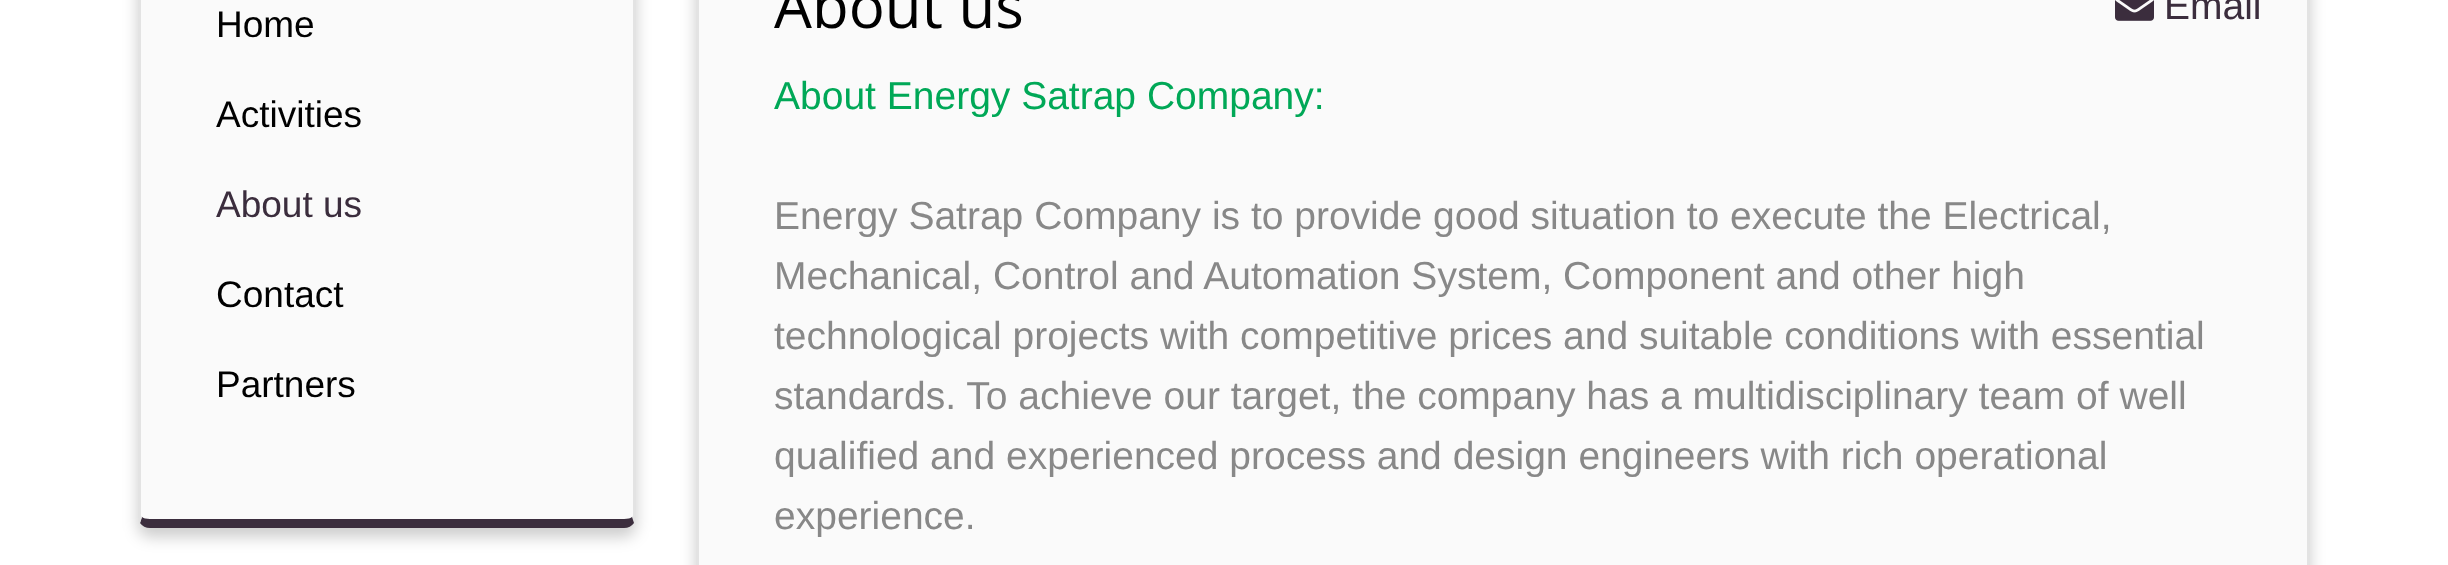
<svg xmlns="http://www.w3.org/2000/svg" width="2448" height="565">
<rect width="100%" height="100%" fill="#fff"/>
<rect x="138" y="-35" width="498" height="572" rx="12" fill="#00000033" filter="blur(7.5px)"/>
<path d="M150-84h474c5 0 9 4 9 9v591c0 2-4 3-9 3h-474c-5 0-9-1-9-3v-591c0-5 4-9 9-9z" fill="#fafafa"/>
<path d="M636 516v-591c0-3-1-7-3-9l-3 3c2 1 3 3 3 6v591l-1 1l2 6c1-2 2-4 2-7z" fill="#e3e3e3"/>
<path d="M150 528h474c4 0 8-2 10-5l-2-6c-1 1-4 2-8 2h-474c-4 0-7-1-8-2l-2 6c2 3 6 5 10 5z" fill="#3b2d3d"/>
<path d="M138-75v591c0 3 1 5 2 7l2-6l-1-1v-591c0-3 1-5 3-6l-3-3c-2 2-3 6-3 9z" fill="#e3e3e3"/>
<text x="216" y="37" style="font-family:Liberation Sans;font-size:37px;fill:#000">Home</text>
<text x="216" y="127" style="font-family:Liberation Sans;font-size:37px;fill:#000">Activities</text>
<text x="216" y="217" style="font-family:Liberation Sans;font-size:37px;fill:#3b2d3d">About us</text>
<text x="216" y="307" style="font-family:Liberation Sans;font-size:37px;fill:#000">Contact</text>
<text x="216" y="397" style="font-family:Liberation Sans;font-size:37px;fill:#000">Partners</text>
<rect x="696" y="-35" width="1614" height="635" rx="12" fill="#00000033" filter="blur(7.5px)"/>
<rect x="697.5" y="-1.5" width="1611" height="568" fill="#fafafa" stroke="#e3e3e3" stroke-width="3"/>
<text x="774" y="28" style="font-family:Open Sans;font-size:60px;fill:#000">About us</text>
<image x="2115" y="0" width="39" height="21" href="media/1.png"/>
<text x="2164" y="19" style="font-family:Liberation Sans;font-size:39px;fill:#3b2d3d">Email</text>
<text x="774" y="109" style="font-family:Liberation Sans;font-size:39px;fill:#00a857">About Energy Satrap Company:</text>
<text x="774" y="229" style="font-family:Liberation Sans;font-size:39px;fill:#888">Energy Satrap Company is to provide good situation to execute the Electrical,</text>
<text x="774" y="289" style="font-family:Liberation Sans;font-size:39px;fill:#888">Mechanical, Control and Automation System, Component and other high</text>
<text x="774" y="349" style="font-family:Liberation Sans;font-size:39px;fill:#888">technological projects with competitive prices and suitable conditions with essential</text>
<text x="774" y="409" style="font-family:Liberation Sans;font-size:39px;fill:#888">standards. To achieve our target, the company has a multidisciplinary team of well</text>
<text x="774" y="469" style="font-family:Liberation Sans;font-size:39px;fill:#888">qualified and experienced process and design engineers with rich operational</text>
<text x="774" y="529" style="font-family:Liberation Sans;font-size:39px;fill:#888">experience.</text>
</svg>
